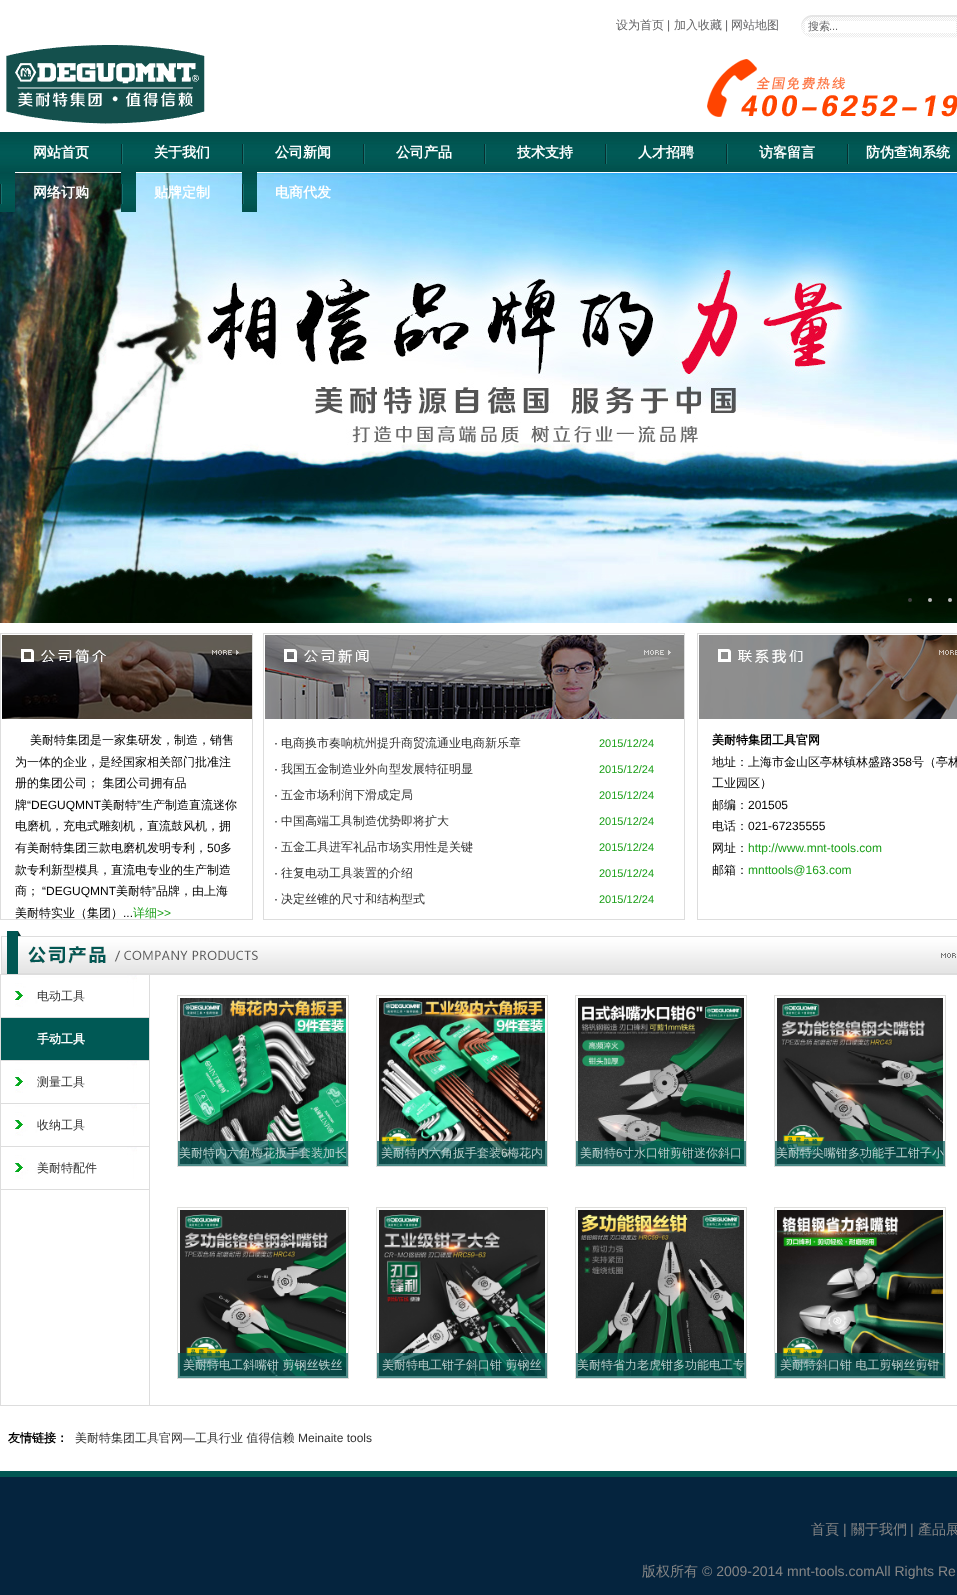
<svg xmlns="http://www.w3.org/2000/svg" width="957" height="1595">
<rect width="100%" height="100%" fill="#fff"/>
<text x="616" y="29" style="font-family:WenQuanYi Zen Hei;font-size:12px;font-weight:500;fill:#636365">设为首页</text>
<text x="667" y="29" style="font-family:Liberation Sans;font-size:12px;fill:#636365">|</text>
<text x="674" y="29" style="font-family:WenQuanYi Zen Hei;font-size:12px;font-weight:500;fill:#636365">加入收藏</text>
<text x="725" y="29" style="font-family:Liberation Sans;font-size:12px;fill:#636365">|</text>
<text x="731" y="29" style="font-family:WenQuanYi Zen Hei;font-size:12px;font-weight:500;fill:#636365">网站地图</text>
<image x="801" y="15" width="156" height="23" href="media/1.png"/>
<rect x="805" y="21" width="151" height="12" fill="#fff"/>
<text x="808" y="30" style="font-family:WenQuanYi Zen Hei;font-size:11px;font-weight:500;fill:#636365">搜索</text>
<text x="829" y="30" style="font-family:Liberation Sans;font-size:11px;fill:#636365">...</text>
<image x="6" y="45" width="199" height="79" href="media/2.png"/>
<image x="707" y="59" width="250" height="58" href="media/3.png"/>
<image x="0" y="132" width="957" height="40" href="media/4.png"/>
<text x="33" y="157" style="font-family:WenQuanYi Zen Hei;font-size:14px;font-weight:bold;fill:#fff">网站首页</text>
<image x="121" y="144" width="2" height="20" href="media/5.png"/>
<text x="154" y="157" style="font-family:WenQuanYi Zen Hei;font-size:14px;font-weight:bold;fill:#fff">关于我们</text>
<image x="242" y="144" width="2" height="20" href="media/5.png"/>
<text x="275" y="157" style="font-family:WenQuanYi Zen Hei;font-size:14px;font-weight:bold;fill:#fff">公司新闻</text>
<image x="363" y="144" width="2" height="20" href="media/5.png"/>
<text x="396" y="157" style="font-family:WenQuanYi Zen Hei;font-size:14px;font-weight:bold;fill:#fff">公司产品</text>
<image x="484" y="144" width="2" height="20" href="media/5.png"/>
<text x="517" y="157" style="font-family:WenQuanYi Zen Hei;font-size:14px;font-weight:bold;fill:#fff">技术支持</text>
<image x="605" y="144" width="2" height="20" href="media/5.png"/>
<text x="638" y="157" style="font-family:WenQuanYi Zen Hei;font-size:14px;font-weight:bold;fill:#fff">人才招聘</text>
<image x="726" y="144" width="2" height="20" href="media/5.png"/>
<text x="759" y="157" style="font-family:WenQuanYi Zen Hei;font-size:14px;font-weight:bold;fill:#fff">访客留言</text>
<image x="847" y="144" width="2" height="20" href="media/5.png"/>
<text x="866" y="157" style="font-family:WenQuanYi Zen Hei;font-size:14px;font-weight:bold;fill:#fff">防伪查询系统</text>
<image x="0" y="173" width="957" height="450" href="media/7.png"/>
<image x="0" y="172" width="15" height="40" href="media/6.png"/>
<text x="33" y="197" style="font-family:WenQuanYi Zen Hei;font-size:14px;font-weight:bold;fill:#fff">网络订购</text>
<image x="121" y="172" width="15" height="40" href="media/6.png"/>
<text x="154" y="197" style="font-family:WenQuanYi Zen Hei;font-size:14px;font-weight:bold;fill:#fff">贴牌定制</text>
<image x="242" y="172" width="15" height="40" href="media/6.png"/>
<text x="275" y="197" style="font-family:WenQuanYi Zen Hei;font-size:14px;font-weight:bold;fill:#fff">电商代发</text>
<circle cx="910" cy="600" r="2" fill="#404040"/>
<circle cx="930" cy="600" r="2" fill="#c0c0c0"/>
<circle cx="950" cy="600" r="2" fill="#c0c0c0"/>
<rect x="0.5" y="633.5" width="252" height="286" fill="none" stroke="#ddd"/>
<image x="2" y="635" width="250" height="84" href="media/8.png"/>
<image x="212" y="650" width="27" height="5" href="media/9.png"/>
<text x="30" y="744" style="font-family:WenQuanYi Zen Hei;font-size:12px;font-weight:500;fill:#000">美耐特集团是一家集研发，制造，销售</text>
<text x="15" y="766" style="font-family:WenQuanYi Zen Hei;font-size:12px;font-weight:500;fill:#000">为一体的企业，是经国家相关部门批准注</text>
<text x="15" y="787" style="font-family:WenQuanYi Zen Hei;font-size:12px;font-weight:500;fill:#000">册的集团公司； 集团公司拥有品</text>
<text x="15" y="809" style="font-family:WenQuanYi Zen Hei;font-size:12px;font-weight:500;fill:#000">牌</text>
<text x="27" y="809" style="font-family:Liberation Sans;font-size:12px;fill:#000">“DEGUQMNT</text>
<text x="101" y="809" style="font-family:WenQuanYi Zen Hei;font-size:12px;font-weight:500;fill:#000">美耐特</text>
<text x="137" y="809" style="font-family:Liberation Sans;font-size:12px;fill:#000">”</text>
<text x="141" y="809" style="font-family:WenQuanYi Zen Hei;font-size:12px;font-weight:500;fill:#000">生产制造直流迷你</text>
<text x="15" y="830" style="font-family:WenQuanYi Zen Hei;font-size:12px;font-weight:500;fill:#000">电磨机，充电式雕刻机，直流鼓风机，拥</text>
<text x="15" y="852" style="font-family:WenQuanYi Zen Hei;font-size:12px;font-weight:500;fill:#000">有美耐特集团三款电磨机发明专利，</text>
<text x="207" y="852" style="font-family:Liberation Sans;font-size:12px;fill:#000">50</text>
<text x="220" y="852" style="font-family:WenQuanYi Zen Hei;font-size:12px;font-weight:500;fill:#000">多</text>
<text x="15" y="874" style="font-family:WenQuanYi Zen Hei;font-size:12px;font-weight:500;fill:#000">款专利新型模具，直流电专业的生产制造</text>
<text x="15" y="895" style="font-family:WenQuanYi Zen Hei;font-size:12px;font-weight:500;fill:#000">商；</text>
<text x="42" y="895" style="font-family:Liberation Sans;font-size:12px;fill:#000">“DEGUQMNT</text>
<text x="116" y="895" style="font-family:WenQuanYi Zen Hei;font-size:12px;font-weight:500;fill:#000">美耐特</text>
<text x="152" y="895" style="font-family:Liberation Sans;font-size:12px;fill:#000">”</text>
<text x="156" y="895" style="font-family:WenQuanYi Zen Hei;font-size:12px;font-weight:500;fill:#000">品牌，由上海</text>
<text x="15" y="917" style="font-family:WenQuanYi Zen Hei;font-size:12px;font-weight:500;fill:#000">美耐特实业（集团）</text>
<text x="123" y="917" style="font-family:Liberation Sans;font-size:12px;fill:#000">...</text>
<text x="133" y="917" style="font-family:WenQuanYi Zen Hei;font-size:12px;font-weight:500;fill:#1ca01a">详细</text>
<text x="157" y="917" style="font-family:Liberation Sans;font-size:12px;fill:#1ca01a">&gt;&gt;</text>
<rect x="263.5" y="633.5" width="421" height="286" fill="none" stroke="#ddd"/>
<image x="265" y="635" width="419" height="84" href="media/10.png"/>
<image x="644" y="650" width="27" height="5" href="media/11.png"/>
<text x="274" y="747" style="font-family:Liberation Sans;font-size:12px;fill:#000">·</text>
<text x="281" y="747" style="font-family:WenQuanYi Zen Hei;font-size:12px;font-weight:500;fill:#333">电商换市奏响杭州提升商贸流通业电商新乐章</text>
<text x="599" y="747" style="font-family:Liberation Sans;font-size:11px;fill:#1ca01a">2015/12/24</text>
<text x="274" y="773" style="font-family:Liberation Sans;font-size:12px;fill:#000">·</text>
<text x="281" y="773" style="font-family:WenQuanYi Zen Hei;font-size:12px;font-weight:500;fill:#333">我国五金制造业外向型发展特征明显</text>
<text x="599" y="773" style="font-family:Liberation Sans;font-size:11px;fill:#1ca01a">2015/12/24</text>
<text x="274" y="799" style="font-family:Liberation Sans;font-size:12px;fill:#000">·</text>
<text x="281" y="799" style="font-family:WenQuanYi Zen Hei;font-size:12px;font-weight:500;fill:#333">五金市场利润下滑成定局</text>
<text x="599" y="799" style="font-family:Liberation Sans;font-size:11px;fill:#1ca01a">2015/12/24</text>
<text x="274" y="825" style="font-family:Liberation Sans;font-size:12px;fill:#000">·</text>
<text x="281" y="825" style="font-family:WenQuanYi Zen Hei;font-size:12px;font-weight:500;fill:#333">中国高端工具制造优势即将扩大</text>
<text x="599" y="825" style="font-family:Liberation Sans;font-size:11px;fill:#1ca01a">2015/12/24</text>
<text x="274" y="851" style="font-family:Liberation Sans;font-size:12px;fill:#000">·</text>
<text x="281" y="851" style="font-family:WenQuanYi Zen Hei;font-size:12px;font-weight:500;fill:#333">五金工具进军礼品市场实用性是关键</text>
<text x="599" y="851" style="font-family:Liberation Sans;font-size:11px;fill:#1ca01a">2015/12/24</text>
<text x="274" y="877" style="font-family:Liberation Sans;font-size:12px;fill:#000">·</text>
<text x="281" y="877" style="font-family:WenQuanYi Zen Hei;font-size:12px;font-weight:500;fill:#333">往复电动工具装置的介绍</text>
<text x="599" y="877" style="font-family:Liberation Sans;font-size:11px;fill:#1ca01a">2015/12/24</text>
<text x="274" y="903" style="font-family:Liberation Sans;font-size:12px;fill:#000">·</text>
<text x="281" y="903" style="font-family:WenQuanYi Zen Hei;font-size:12px;font-weight:500;fill:#333">决定丝锥的尺寸和结构型式</text>
<text x="599" y="903" style="font-family:Liberation Sans;font-size:11px;fill:#1ca01a">2015/12/24</text>
<rect x="697.5" y="633.5" width="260" height="286" fill="none" stroke="#ddd"/>
<image x="699" y="635" width="258" height="84" href="media/12.png"/>
<image x="939" y="650" width="18" height="5" href="media/13.png"/>
<text x="712" y="744" style="font-family:WenQuanYi Zen Hei;font-size:12px;font-weight:bold;fill:#000">美耐特集团工具官网</text>
<text x="712" y="766" style="font-family:WenQuanYi Zen Hei;font-size:12px;font-weight:500;fill:#000">地址：上海市金山区亭林镇林盛路</text>
<text x="892" y="766" style="font-family:Liberation Sans;font-size:12px;fill:#000">358</text>
<text x="912" y="766" style="font-family:WenQuanYi Zen Hei;font-size:12px;font-weight:500;fill:#000">号（亭林</text>
<text x="712" y="787" style="font-family:WenQuanYi Zen Hei;font-size:12px;font-weight:500;fill:#000">工业园区）</text>
<text x="712" y="809" style="font-family:WenQuanYi Zen Hei;font-size:12px;font-weight:500;fill:#000">邮编：</text>
<text x="748" y="809" style="font-family:Liberation Sans;font-size:12px;fill:#000">201505</text>
<text x="712" y="830" style="font-family:WenQuanYi Zen Hei;font-size:12px;font-weight:500;fill:#000">电话：</text>
<text x="748" y="830" style="font-family:Liberation Sans;font-size:12px;fill:#000">021-67235555</text>
<text x="712" y="852" style="font-family:WenQuanYi Zen Hei;font-size:12px;font-weight:500;fill:#000">网址：</text>
<text x="748" y="852" style="font-family:Liberation Sans;font-size:12px;fill:#1ca01a">http://www.mnt-tools.com</text>
<text x="712" y="874" style="font-family:WenQuanYi Zen Hei;font-size:12px;font-weight:500;fill:#000">邮箱：</text>
<text x="748" y="874" style="font-family:Liberation Sans;font-size:12px;fill:#1ca01a">mnttools@163.com</text>
<image x="1" y="931" width="956" height="43" href="media/14.png"/>
<image x="941" y="953" width="15" height="5" href="media/15.png"/>
<rect x="0.5" y="974.5" width="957" height="431" fill="none" stroke="#ddd"/>
<image x="15" y="975" width="122" height="32" href="media/16.png"/>
<rect x="1" y="1017" width="148" height="1" fill="#ddd"/>
<text x="37" y="1000" style="font-family:WenQuanYi Zen Hei;font-size:12px;font-weight:500;fill:#333">电动工具</text>
<rect x="1" y="1018" width="148" height="42" fill="#005955"/>
<rect x="1" y="1060" width="148" height="1" fill="#ddd"/>
<text x="37" y="1043" style="font-family:WenQuanYi Zen Hei;font-size:12px;font-weight:bold;fill:#fff">手动工具</text>
<image x="15" y="1061" width="122" height="32" href="media/16.png"/>
<rect x="1" y="1103" width="148" height="1" fill="#ddd"/>
<text x="37" y="1086" style="font-family:WenQuanYi Zen Hei;font-size:12px;font-weight:500;fill:#333">测量工具</text>
<image x="15" y="1104" width="122" height="32" href="media/16.png"/>
<rect x="1" y="1146" width="148" height="1" fill="#ddd"/>
<text x="37" y="1129" style="font-family:WenQuanYi Zen Hei;font-size:12px;font-weight:500;fill:#333">收纳工具</text>
<image x="15" y="1147" width="122" height="32" href="media/16.png"/>
<rect x="1" y="1189" width="148" height="1" fill="#ddd"/>
<text x="37" y="1172" style="font-family:WenQuanYi Zen Hei;font-size:12px;font-weight:500;fill:#333">美耐特配件</text>
<rect x="149" y="975" width="1" height="430" fill="#ddd"/>
<rect x="177.5" y="995.5" width="171" height="171" fill="none" stroke="#dededc"/>
<image x="180" y="998" width="166" height="166" href="media/17.png"/>
<rect x="178" y="1141" width="170" height="25" fill="#005955b3"/>
<text x="179" y="1157" style="font-family:WenQuanYi Zen Hei;font-size:12px;font-weight:500;fill:#bad0ce">美耐特内六角梅花扳手套装加长</text>
<rect x="376.5" y="995.5" width="171" height="171" fill="none" stroke="#dededc"/>
<image x="379" y="998" width="166" height="166" href="media/18.png"/>
<rect x="377" y="1141" width="170" height="25" fill="#005955b3"/>
<text x="381" y="1157" style="font-family:WenQuanYi Zen Hei;font-size:12px;font-weight:500;fill:#bad0ce">美耐特内六角扳手套装</text>
<text x="501" y="1157" style="font-family:Liberation Sans;font-size:12px;fill:#c0cecc">6</text>
<text x="507" y="1157" style="font-family:WenQuanYi Zen Hei;font-size:12px;font-weight:500;fill:#b7c9c8">梅花内</text>
<rect x="575.5" y="995.5" width="171" height="171" fill="none" stroke="#dededc"/>
<image x="578" y="998" width="166" height="166" href="media/19.png"/>
<rect x="576" y="1141" width="170" height="25" fill="#005955b3"/>
<text x="580" y="1157" style="font-family:WenQuanYi Zen Hei;font-size:12px;font-weight:500;fill:#bad0ce">美耐特</text>
<text x="616" y="1157" style="font-family:Liberation Sans;font-size:12px;fill:#b7c9c8">6</text>
<text x="622" y="1157" style="font-family:WenQuanYi Zen Hei;font-size:12px;font-weight:500;fill:#b7c9c8">寸水口钳剪钳迷你斜口</text>
<rect x="774.5" y="995.5" width="171" height="171" fill="none" stroke="#dededc"/>
<image x="777" y="998" width="166" height="166" href="media/20.png"/>
<rect x="775" y="1141" width="170" height="25" fill="#005955b3"/>
<text x="776" y="1157" style="font-family:WenQuanYi Zen Hei;font-size:12px;font-weight:500;fill:#bad0ce">美耐特尖嘴钳多功能手工钳子小</text>
<rect x="177.5" y="1207.5" width="171" height="171" fill="none" stroke="#dededc"/>
<image x="180" y="1210" width="166" height="166" href="media/21.png"/>
<rect x="178" y="1353" width="170" height="25" fill="#005955b3"/>
<text x="183" y="1369" style="font-family:WenQuanYi Zen Hei;font-size:12px;font-weight:500;fill:#bad0ce">美耐特电工斜嘴钳 剪钢丝铁丝</text>
<rect x="376.5" y="1207.5" width="171" height="171" fill="none" stroke="#dededc"/>
<image x="379" y="1210" width="166" height="166" href="media/22.png"/>
<rect x="377" y="1353" width="170" height="25" fill="#005955b3"/>
<text x="382" y="1369" style="font-family:WenQuanYi Zen Hei;font-size:12px;font-weight:500;fill:#b7c9c8">美耐特电工钳子斜口钳 剪钢丝</text>
<rect x="575.5" y="1207.5" width="171" height="171" fill="none" stroke="#dededc"/>
<image x="578" y="1210" width="166" height="166" href="media/23.png"/>
<rect x="576" y="1353" width="170" height="25" fill="#005955b3"/>
<text x="577" y="1369" style="font-family:WenQuanYi Zen Hei;font-size:12px;font-weight:500;fill:#b7c9c8">美耐特省力老虎钳多功能电工专</text>
<rect x="774.5" y="1207.5" width="171" height="171" fill="none" stroke="#dededc"/>
<image x="777" y="1210" width="166" height="166" href="media/24.png"/>
<rect x="775" y="1353" width="170" height="25" fill="#005955b3"/>
<text x="780" y="1369" style="font-family:WenQuanYi Zen Hei;font-size:12px;font-weight:500;fill:#b7c9c8">美耐特斜口钳 电工剪钢丝剪钳</text>
<text x="8" y="1442" style="font-family:WenQuanYi Zen Hei;font-size:12px;font-weight:bold;fill:#000">友情链接：</text>
<text x="75" y="1442" style="font-family:WenQuanYi Zen Hei;font-size:12px;font-weight:500;fill:#333">美耐特集团工具官网</text>
<text x="183" y="1442" style="font-family:Liberation Sans;font-size:12px;fill:#333">—</text>
<text x="195" y="1442" style="font-family:WenQuanYi Zen Hei;font-size:12px;font-weight:500;fill:#333">工具行业 值得信赖</text>
<text x="298" y="1442" style="font-family:Liberation Sans;font-size:12px;fill:#333">Meinaite tools</text>
<image x="0" y="1471" width="957" height="124" href="media/25.png"/>
<text x="811" y="1534" style="font-family:WenQuanYi Zen Hei;font-size:14px;font-weight:500;fill:#868686">首頁</text>
<text x="843" y="1534" style="font-family:Liberation Sans;font-size:14px;fill:#868686">|</text>
<text x="851" y="1534" style="font-family:WenQuanYi Zen Hei;font-size:14px;font-weight:500;fill:#868686">關于我們</text>
<text x="910" y="1534" style="font-family:Liberation Sans;font-size:14px;fill:#868686">|</text>
<text x="918" y="1534" style="font-family:WenQuanYi Zen Hei;font-size:14px;font-weight:500;fill:#868686">產品展</text>
<text x="642" y="1576" style="font-family:WenQuanYi Zen Hei;font-size:14px;font-weight:500;fill:#868686">版权所有</text>
<text x="702" y="1576" style="font-family:Liberation Sans;font-size:14px;fill:#868686">© 2009-2014 mnt-tools.comAll Rights Re</text>
</svg>
